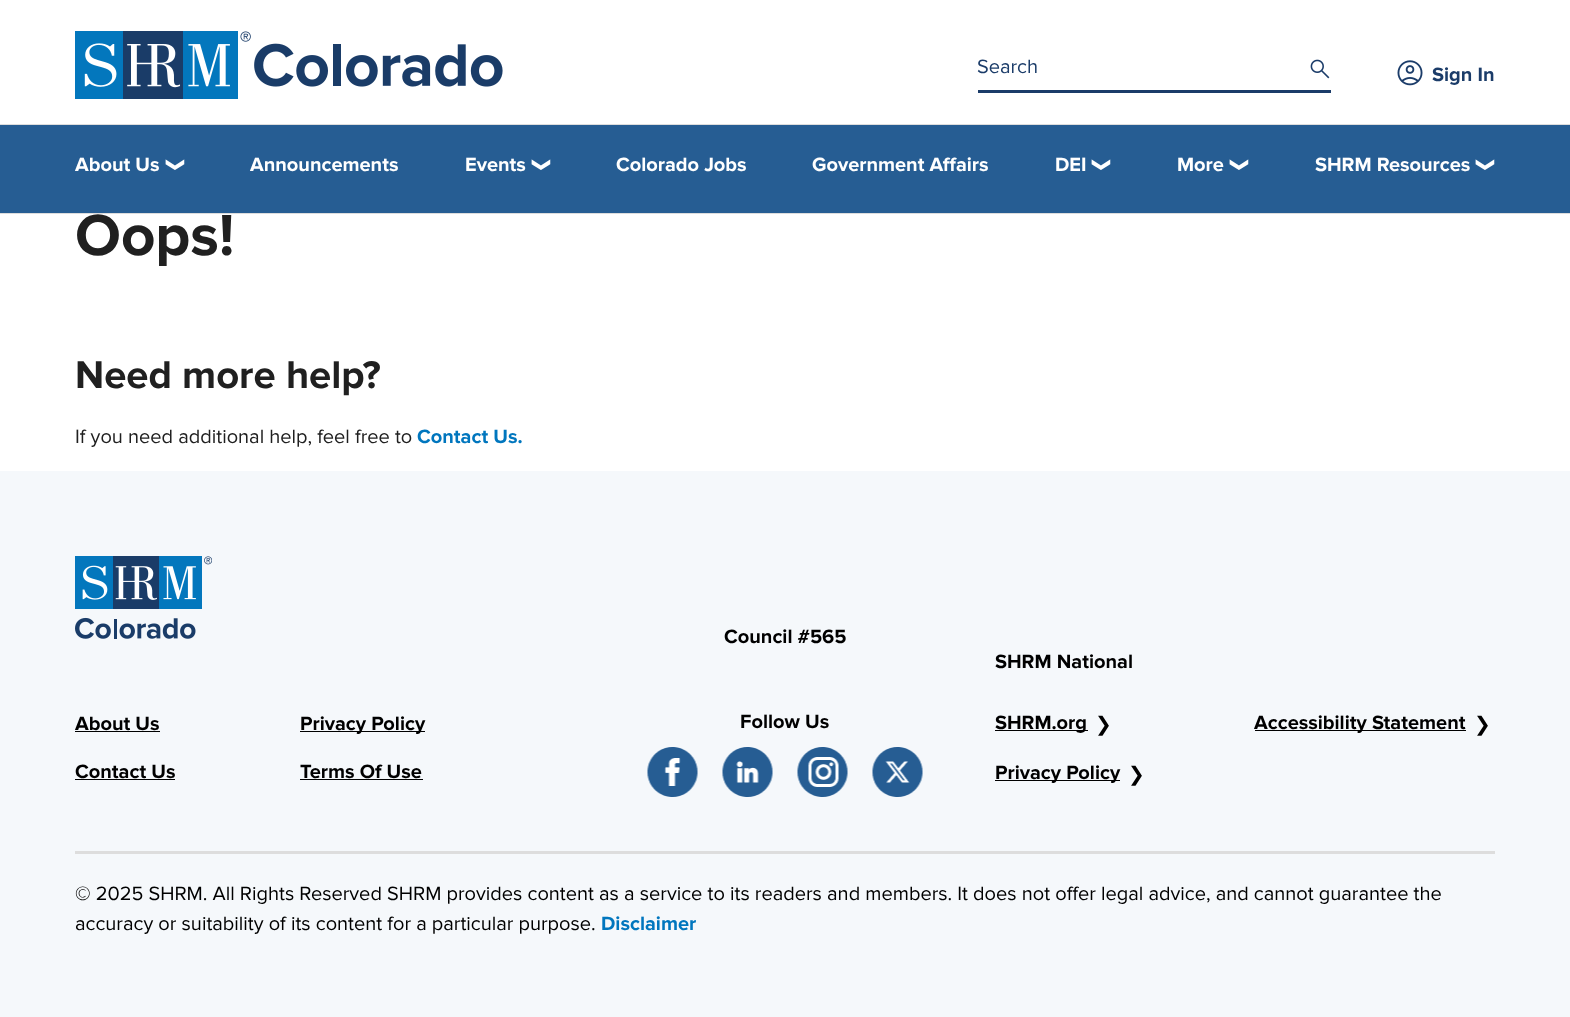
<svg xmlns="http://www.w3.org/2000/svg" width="1570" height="1017">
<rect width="100%" height="100%" fill="#fff"/>
<rect y="213" width="1570" height="1" fill="#ddd"/>
<image x="75" y="31" width="428" height="68" href="media/1.png"/>
<rect x="978" y="90" width="353" height="3" fill="#1b3c69"/>
<text x="977" y="73" style="font-family:Proxima Nova;font-size:20px;fill:#1b3c69">Search</text>
<image x="1310" y="59" width="20" height="20" href="media/2.png"/>
<image x="1397" y="60" width="26" height="26" href="media/3.png"/>
<text x="1432" y="81" style="font-family:Proxima Nova;font-size:20px;font-weight:bold;fill:#1b3c69">Sign In</text>
<rect y="125" width="1570" height="88" fill="#265d93"/>
<rect y="124" width="1570" height="1" fill="#ddd"/>
<text x="75" y="171" style="font-family:Proxima Nova;font-size:20px;font-weight:bold;fill:#fff">About Us</text>
<text x="170" y="157" transform="rotate(90 170 157)" style="font-family:DejaVu Sans;font-size:18px;font-weight:bold;fill:#fff">❯</text>
<text x="250" y="171" style="font-family:Proxima Nova;font-size:20px;font-weight:bold;fill:#fff">Announcements</text>
<text x="465" y="171" style="font-family:Proxima Nova;font-size:20px;font-weight:bold;fill:#fff">Events</text>
<text x="536" y="157" transform="rotate(90 536 157)" style="font-family:DejaVu Sans;font-size:18px;font-weight:bold;fill:#fff">❯</text>
<text x="616" y="171" style="font-family:Proxima Nova;font-size:20px;font-weight:bold;fill:#fff">Colorado Jobs</text>
<text x="812" y="171" style="font-family:Proxima Nova;font-size:20px;font-weight:bold;fill:#fff">Government Affairs</text>
<text x="1055" y="171" style="font-family:Proxima Nova;font-size:20px;font-weight:bold;fill:#fff">DEI</text>
<text x="1096" y="157" transform="rotate(90 1096 157)" style="font-family:DejaVu Sans;font-size:18px;font-weight:bold;fill:#fff">❯</text>
<text x="1177" y="171" style="font-family:Proxima Nova;font-size:20px;font-weight:bold;fill:#fff">More</text>
<text x="1234" y="157" transform="rotate(90 1234 157)" style="font-family:DejaVu Sans;font-size:18px;font-weight:bold;fill:#fff">❯</text>
<text x="1315" y="171" style="font-family:Proxima Nova;font-size:20px;font-weight:bold;fill:#fff">SHRM Resources</text>
<text x="1480" y="157" transform="rotate(90 1480 157)" style="font-family:DejaVu Sans;font-size:18px;font-weight:bold;fill:#fff">❯</text>
<text x="75" y="255" style="font-family:Proxima Nova;font-size:60px;font-weight:bold;fill:#202020">Oops!</text>
<text x="75" y="388" style="font-family:Proxima Nova;font-size:40px;font-weight:bold;fill:#202020">Need more help?</text>
<text x="75" y="443" style="font-family:Proxima Nova;font-size:20px;fill:#202020">If you need additional help, feel free to</text>
<text x="417" y="443" style="font-family:Proxima Nova;font-size:20px;font-weight:bold;fill:#0076be">Contact Us.</text>
<rect y="471" width="1570" height="546" fill="#f5f8fb"/>
<image x="75" y="556" width="137" height="83" href="media/4.png"/>
<text x="724" y="643" style="font-family:Proxima Nova;font-size:20px;font-weight:bold;fill:#000">Council #565</text>
<text x="75" y="730" style="font-family:Proxima Nova;font-size:20px;font-weight:bold;fill:#000">About Us</text>
<rect x="75" y="731" width="85" height="1" fill="#000"/>
<rect x="300" y="731" width="125" height="1" fill="#000"/>
<text x="300" y="730" style="font-family:Proxima Nova;font-size:20px;font-weight:bold;fill:#000">Privacy Policy</text>
<text x="75" y="778" style="font-family:Proxima Nova;font-size:20px;font-weight:bold;fill:#000">Contact Us</text>
<rect x="75" y="779" width="100" height="1" fill="#000"/>
<text x="300" y="778" style="font-family:Proxima Nova;font-size:20px;font-weight:bold;fill:#000">Terms Of Use</text>
<rect x="300" y="779" width="123" height="1" fill="#000"/>
<text x="740" y="728" style="font-family:Proxima Nova;font-size:20px;font-weight:bold;fill:#000">Follow Us</text>
<image x="647" y="747" width="51" height="50" href="media/5.png"/>
<image x="722" y="747" width="51" height="50" href="media/6.png"/>
<image x="797" y="747" width="51" height="50" href="media/7.png"/>
<image x="872" y="747" width="51" height="50" href="media/8.png"/>
<text x="995" y="668" style="font-family:Proxima Nova;font-size:20px;font-weight:bold;fill:#000">SHRM National</text>
<rect x="995" y="730" width="93" height="1" fill="#000"/>
<text x="995" y="729" style="font-family:Proxima Nova;font-size:20px;font-weight:bold;fill:#000">SHRM.org</text>
<text x="1095" y="731" style="font-family:DejaVu Sans;font-size:20px;fill:#000">❯</text>
<rect x="1255" y="730" width="211" height="1" fill="#000"/>
<text x="1254" y="729" style="font-family:Proxima Nova;font-size:20px;font-weight:bold;fill:#000">Accessibility Statement</text>
<text x="1474" y="731" style="font-family:DejaVu Sans;font-size:20px;fill:#000">❯</text>
<rect x="995" y="780" width="125" height="1" fill="#000"/>
<text x="995" y="779" style="font-family:Proxima Nova;font-size:20px;font-weight:bold;fill:#000">Privacy Policy</text>
<text x="1128" y="781" style="font-family:DejaVu Sans;font-size:20px;fill:#000">❯</text>
<rect x="75" y="851" width="1420" height="3" fill="#ddd"/>
<text x="75" y="900" style="font-family:Proxima Nova;font-size:20px;fill:#000">© 2025 SHRM. All Rights Reserved SHRM provides content as a service to its readers and members. It does not offer legal advice, and cannot guarantee the</text>
<text x="75" y="930" style="font-family:Proxima Nova;font-size:20px;fill:#000">accuracy or suitability of its content for a particular purpose.</text>
<text x="601" y="930" style="font-family:Proxima Nova;font-size:20px;font-weight:bold;fill:#0076be">Disclaimer</text>
</svg>
